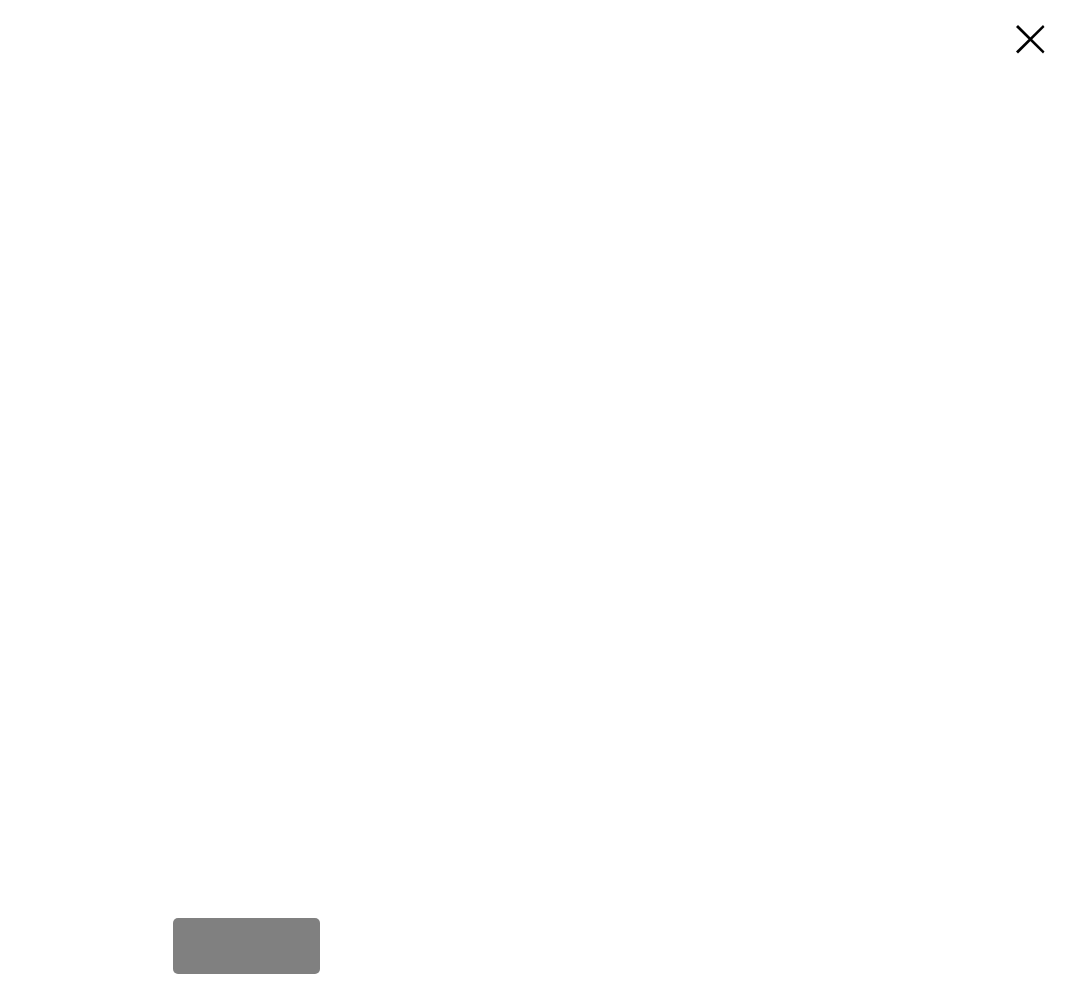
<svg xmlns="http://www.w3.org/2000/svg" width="1070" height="987">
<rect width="100%" height="100%" fill="#fff"/>
<path d="M1016 27l2-2l26.5 26.5l-1.5 2z" fill="#000" fill-rule="evenodd"/>
<path d="M1043 25l1.5 2l-26.5 26.5l-2-2z" fill="#000" fill-rule="evenodd"/>
<rect x="173" y="918" width="147" height="56" rx="5" fill="#808080"/>
</svg>
